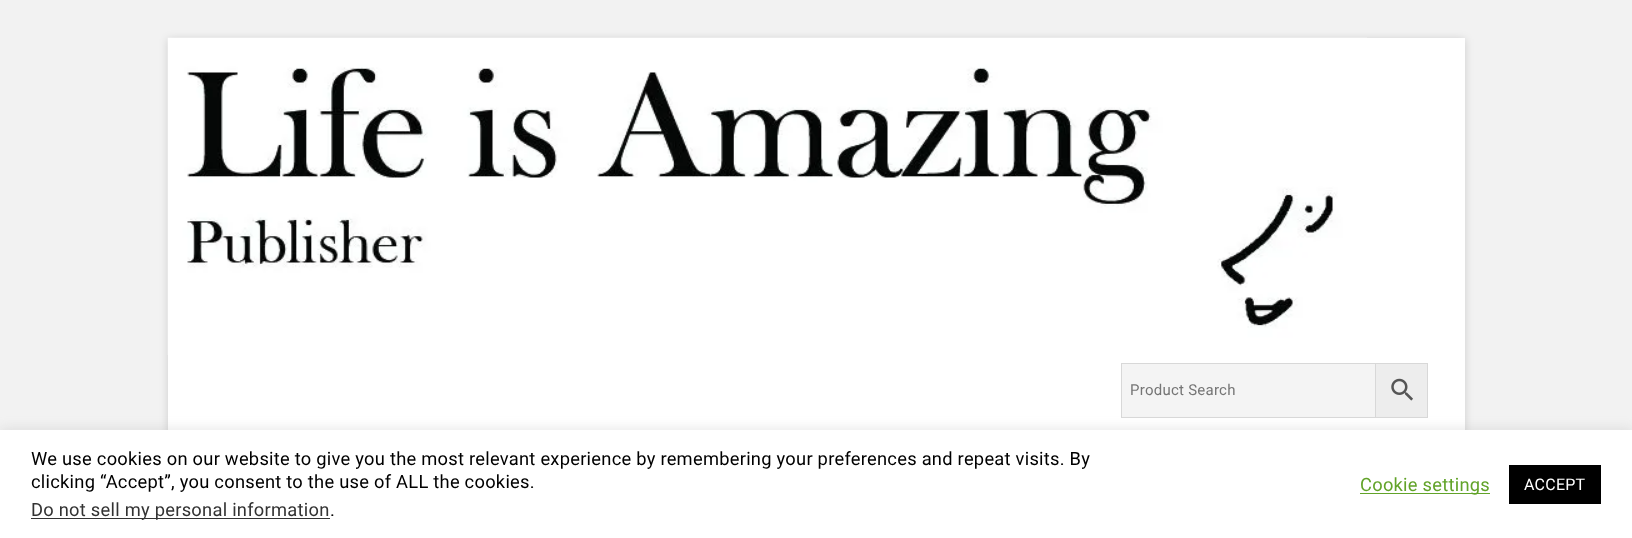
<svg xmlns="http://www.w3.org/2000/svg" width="1632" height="538">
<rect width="100%" height="100%" fill="#f2f2f2"/>
<rect x="168" y="39" width="1297" height="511" fill="#00000026" filter="blur(4px)"/>
<rect x="168" y="38" width="1297" height="392" fill="#fff"/>
<image x="167" y="37" width="1200" height="318" href="media/1.png"/>
<rect x="1375.5" y="363.5" width="52" height="54" fill="#ededed" stroke="#d8d8d8"/>
<rect x="1121.5" y="363.5" width="254" height="54" fill="#f4f4f4" stroke="#d8d8d8"/>
<text x="1130" y="395" style="font-family:Roboto;font-size:15px;letter-spacing:0.25px;fill:#757575">Product Search</text>
<image x="1391" y="378" width="22" height="23" href="media/2.png"/>
<rect y="429" width="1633" height="109" fill="#acabab4d" filter="blur(6px)"/>
<rect y="430" width="1632" height="108" fill="#fff"/>
<text x="31" y="465" style="font-family:Roboto;font-size:18.33px;letter-spacing:0.25px;fill:#000">We use cookies on our website to give you the most relevant experience by remembering your preferences and repeat visits. By</text>
<text x="31" y="488" style="font-family:Roboto;font-size:18.33px;letter-spacing:0.25px;fill:#000">clicking “Accept”, you consent to the use of ALL the cookies.</text>
<rect x="31" y="518" width="299" height="1" fill="#333"/>
<text x="31" y="516" style="font-family:Roboto;font-size:18.33px;letter-spacing:0.25px;fill:#333">Do not sell my personal information</text>
<text x="330" y="516" style="font-family:Roboto;font-size:18.33px;letter-spacing:0.25px;fill:#000">.</text>
<rect x="1360" y="493" width="130" height="1" fill="#62a329"/>
<text x="1360" y="491" style="font-family:Roboto;font-size:18.33px;letter-spacing:0.25px;fill:#62a329">Cookie settings</text>
<rect x="1509" y="465" width="92" height="39" fill="#000"/>
<text x="1524" y="490" style="font-family:Roboto;font-size:16px;letter-spacing:0.25px;fill:#fff">ACCEPT</text>
</svg>
